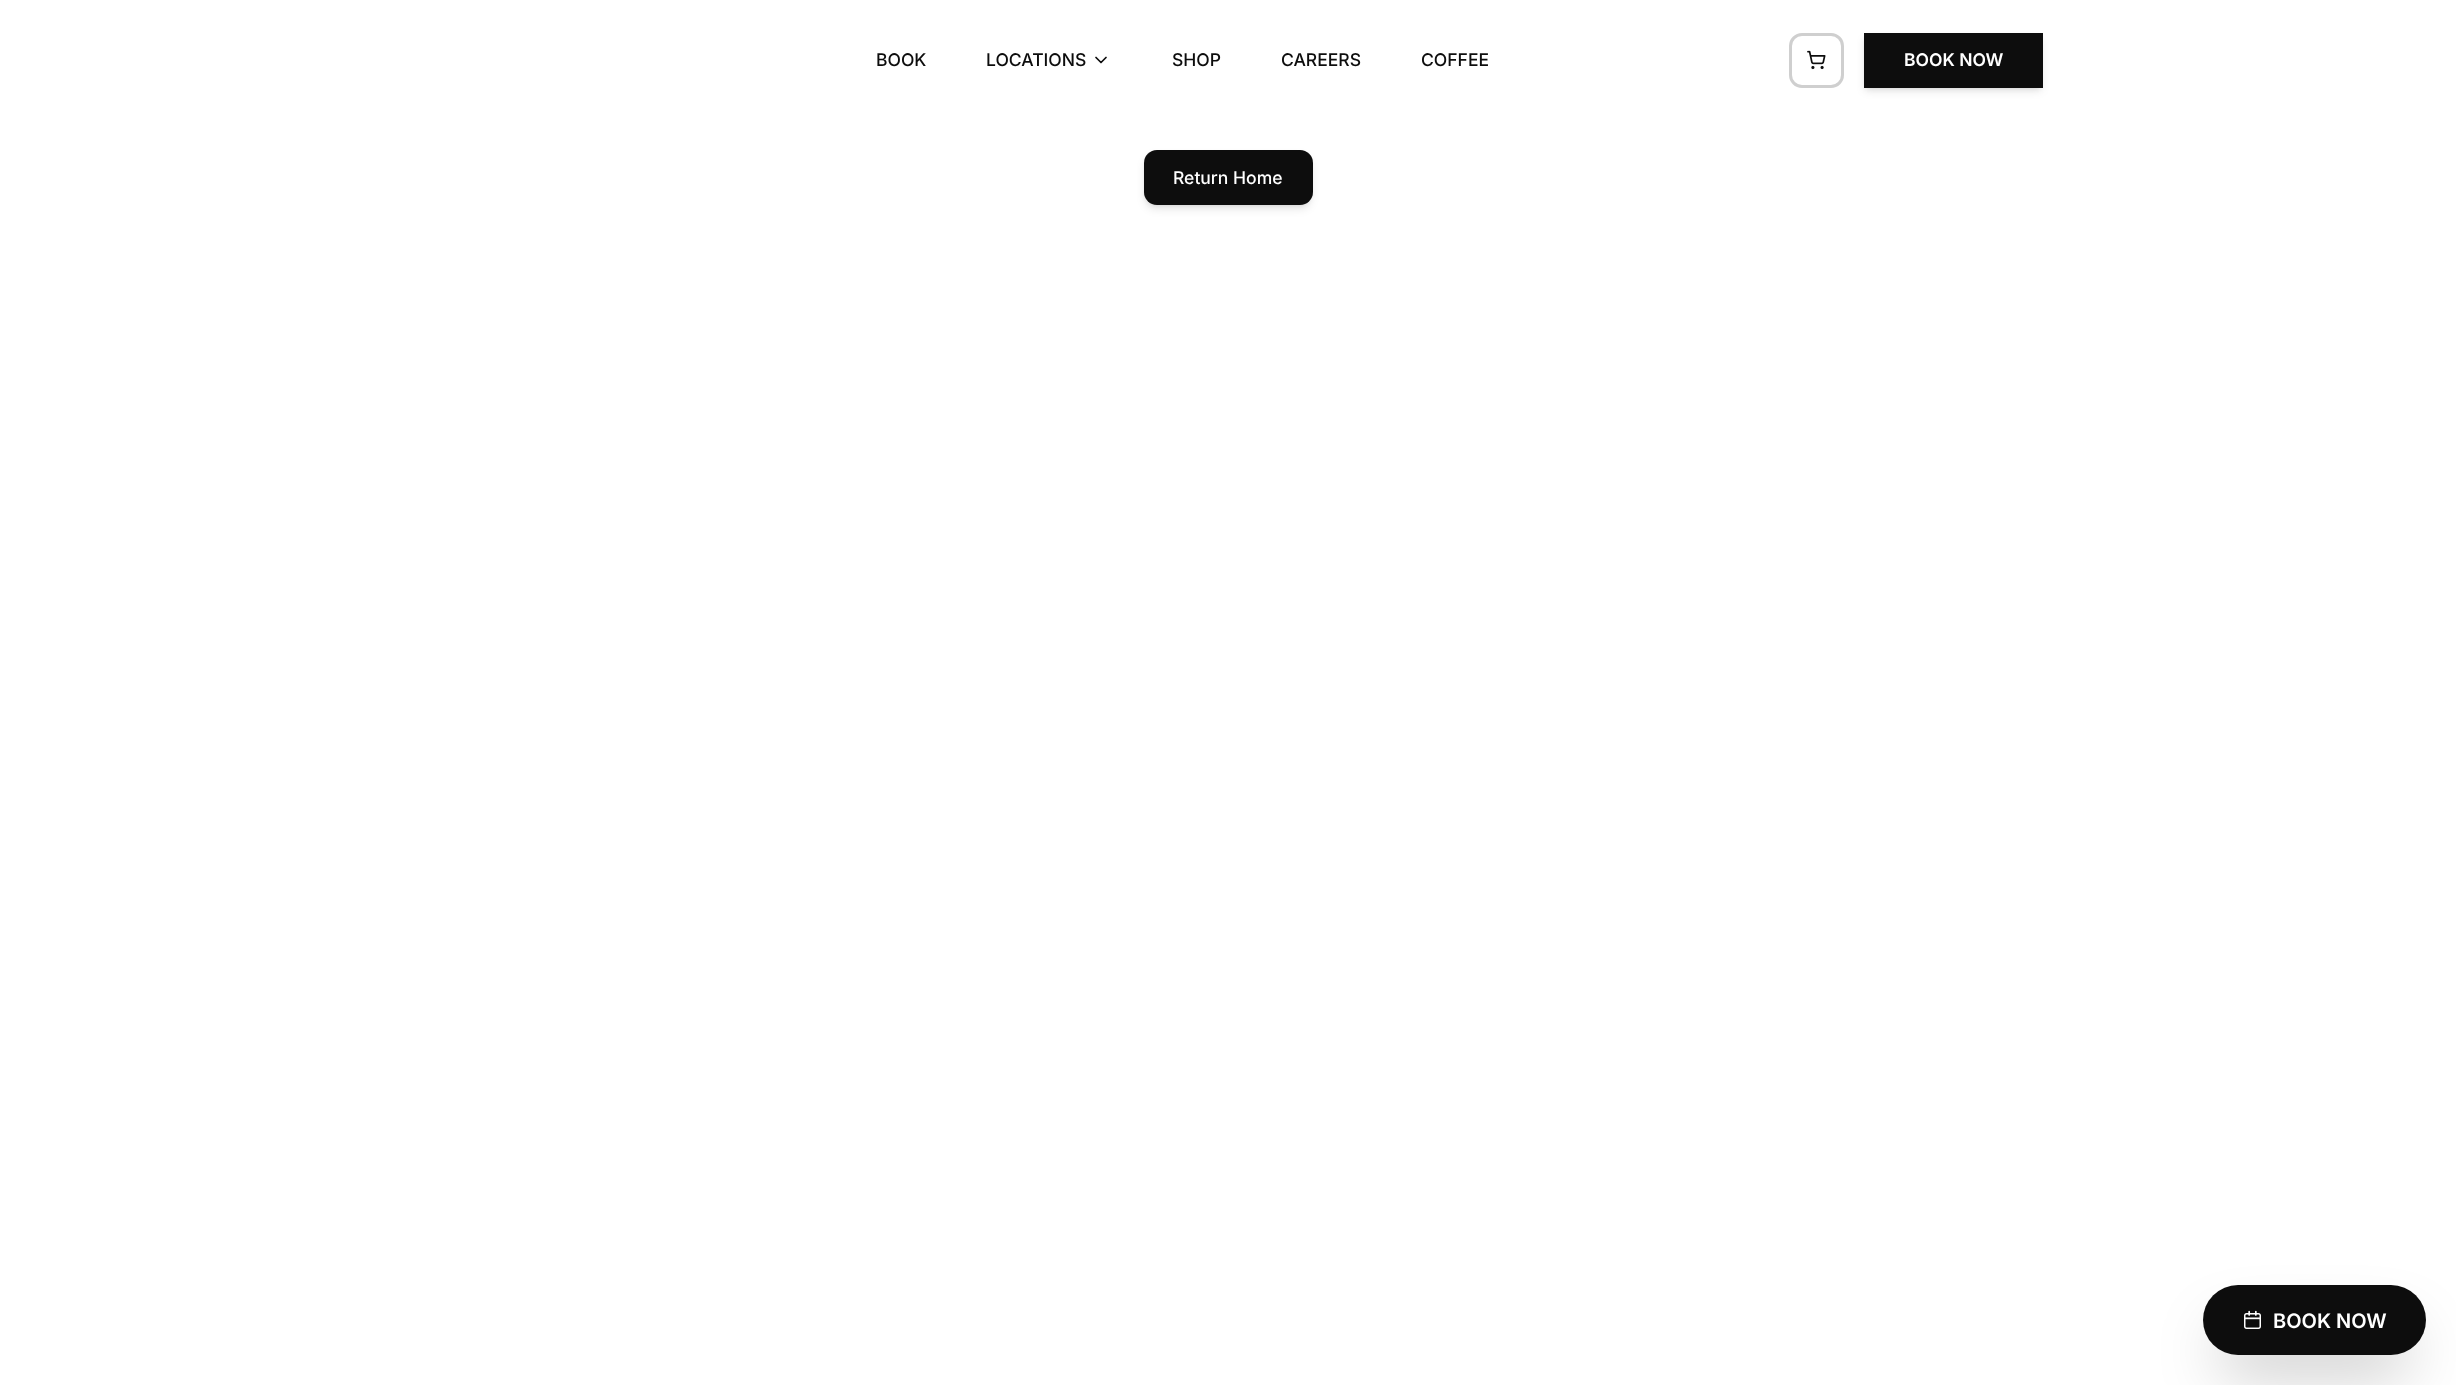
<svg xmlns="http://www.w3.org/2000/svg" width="2456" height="1385">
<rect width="100%" height="100%" fill="#fff"/>
<text x="876" y="66" style="font-family:Inter;font-size:17.5px;font-weight:500;fill:#0d0d0d">BOOK</text>
<text x="986" y="66" style="font-family:Inter;font-size:17.5px;font-weight:500;fill:#0d0d0d">LOCATIONS</text>
<path d="M1096 57.5l5 5l5-5" fill="none" stroke="#0d0d0d" stroke-width="1.7" stroke-linecap="round" stroke-linejoin="round"/>
<text x="1172" y="66" style="font-family:Inter;font-size:17.5px;font-weight:500;fill:#0d0d0d">SHOP</text>
<text x="1281" y="66" style="font-family:Inter;font-size:17.5px;font-weight:500;fill:#0d0d0d">CAREERS</text>
<text x="1421" y="66" style="font-family:Inter;font-size:17.5px;font-weight:500;fill:#0d0d0d">COFFEE</text>
<rect x="1790.5" y="34.5" width="52" height="52" rx="11.5" fill="none" stroke="#cfcfcf" stroke-width="3"/>
<image x="1807" y="50" width="19" height="20" href="media/1.png"/>
<rect x="1866" y="38" width="174" height="50" fill="#0000001a" filter="blur(2.5px)"/>
<rect x="1865" y="39" width="176" height="52" fill="#0000001a" filter="blur(4px)"/>
<rect x="1864" y="33" width="179" height="55" fill="#0d0d0d"/>
<text x="1904" y="66" style="font-family:Inter;font-size:17.5px;font-weight:600;fill:#fff">BOOK NOW</text>
<rect x="1146" y="155" width="164" height="50" rx="10" fill="#0000001a" filter="blur(2.5px)"/>
<rect x="1145" y="156" width="166" height="53" rx="11" fill="#0000001a" filter="blur(4px)"/>
<rect x="1144" y="150" width="169" height="55" rx="13" fill="#0d0d0d"/>
<text x="1173" y="184" style="font-family:Inter;font-size:17.5px;font-weight:500;fill:#fff">Return Home</text>
<rect x="2218" y="1331" width="193" height="40" rx="20" fill="#00000040" filter="blur(31px)"/>
<rect x="2203" y="1285" width="223" height="70" rx="35" fill="#0d0d0d"/>
<image x="2244" y="1310" width="17" height="19" href="media/2.png"/>
<text x="2273" y="1328" style="font-family:Inter;font-size:20px;font-weight:600;fill:#fff">BOOK NOW</text>
</svg>
